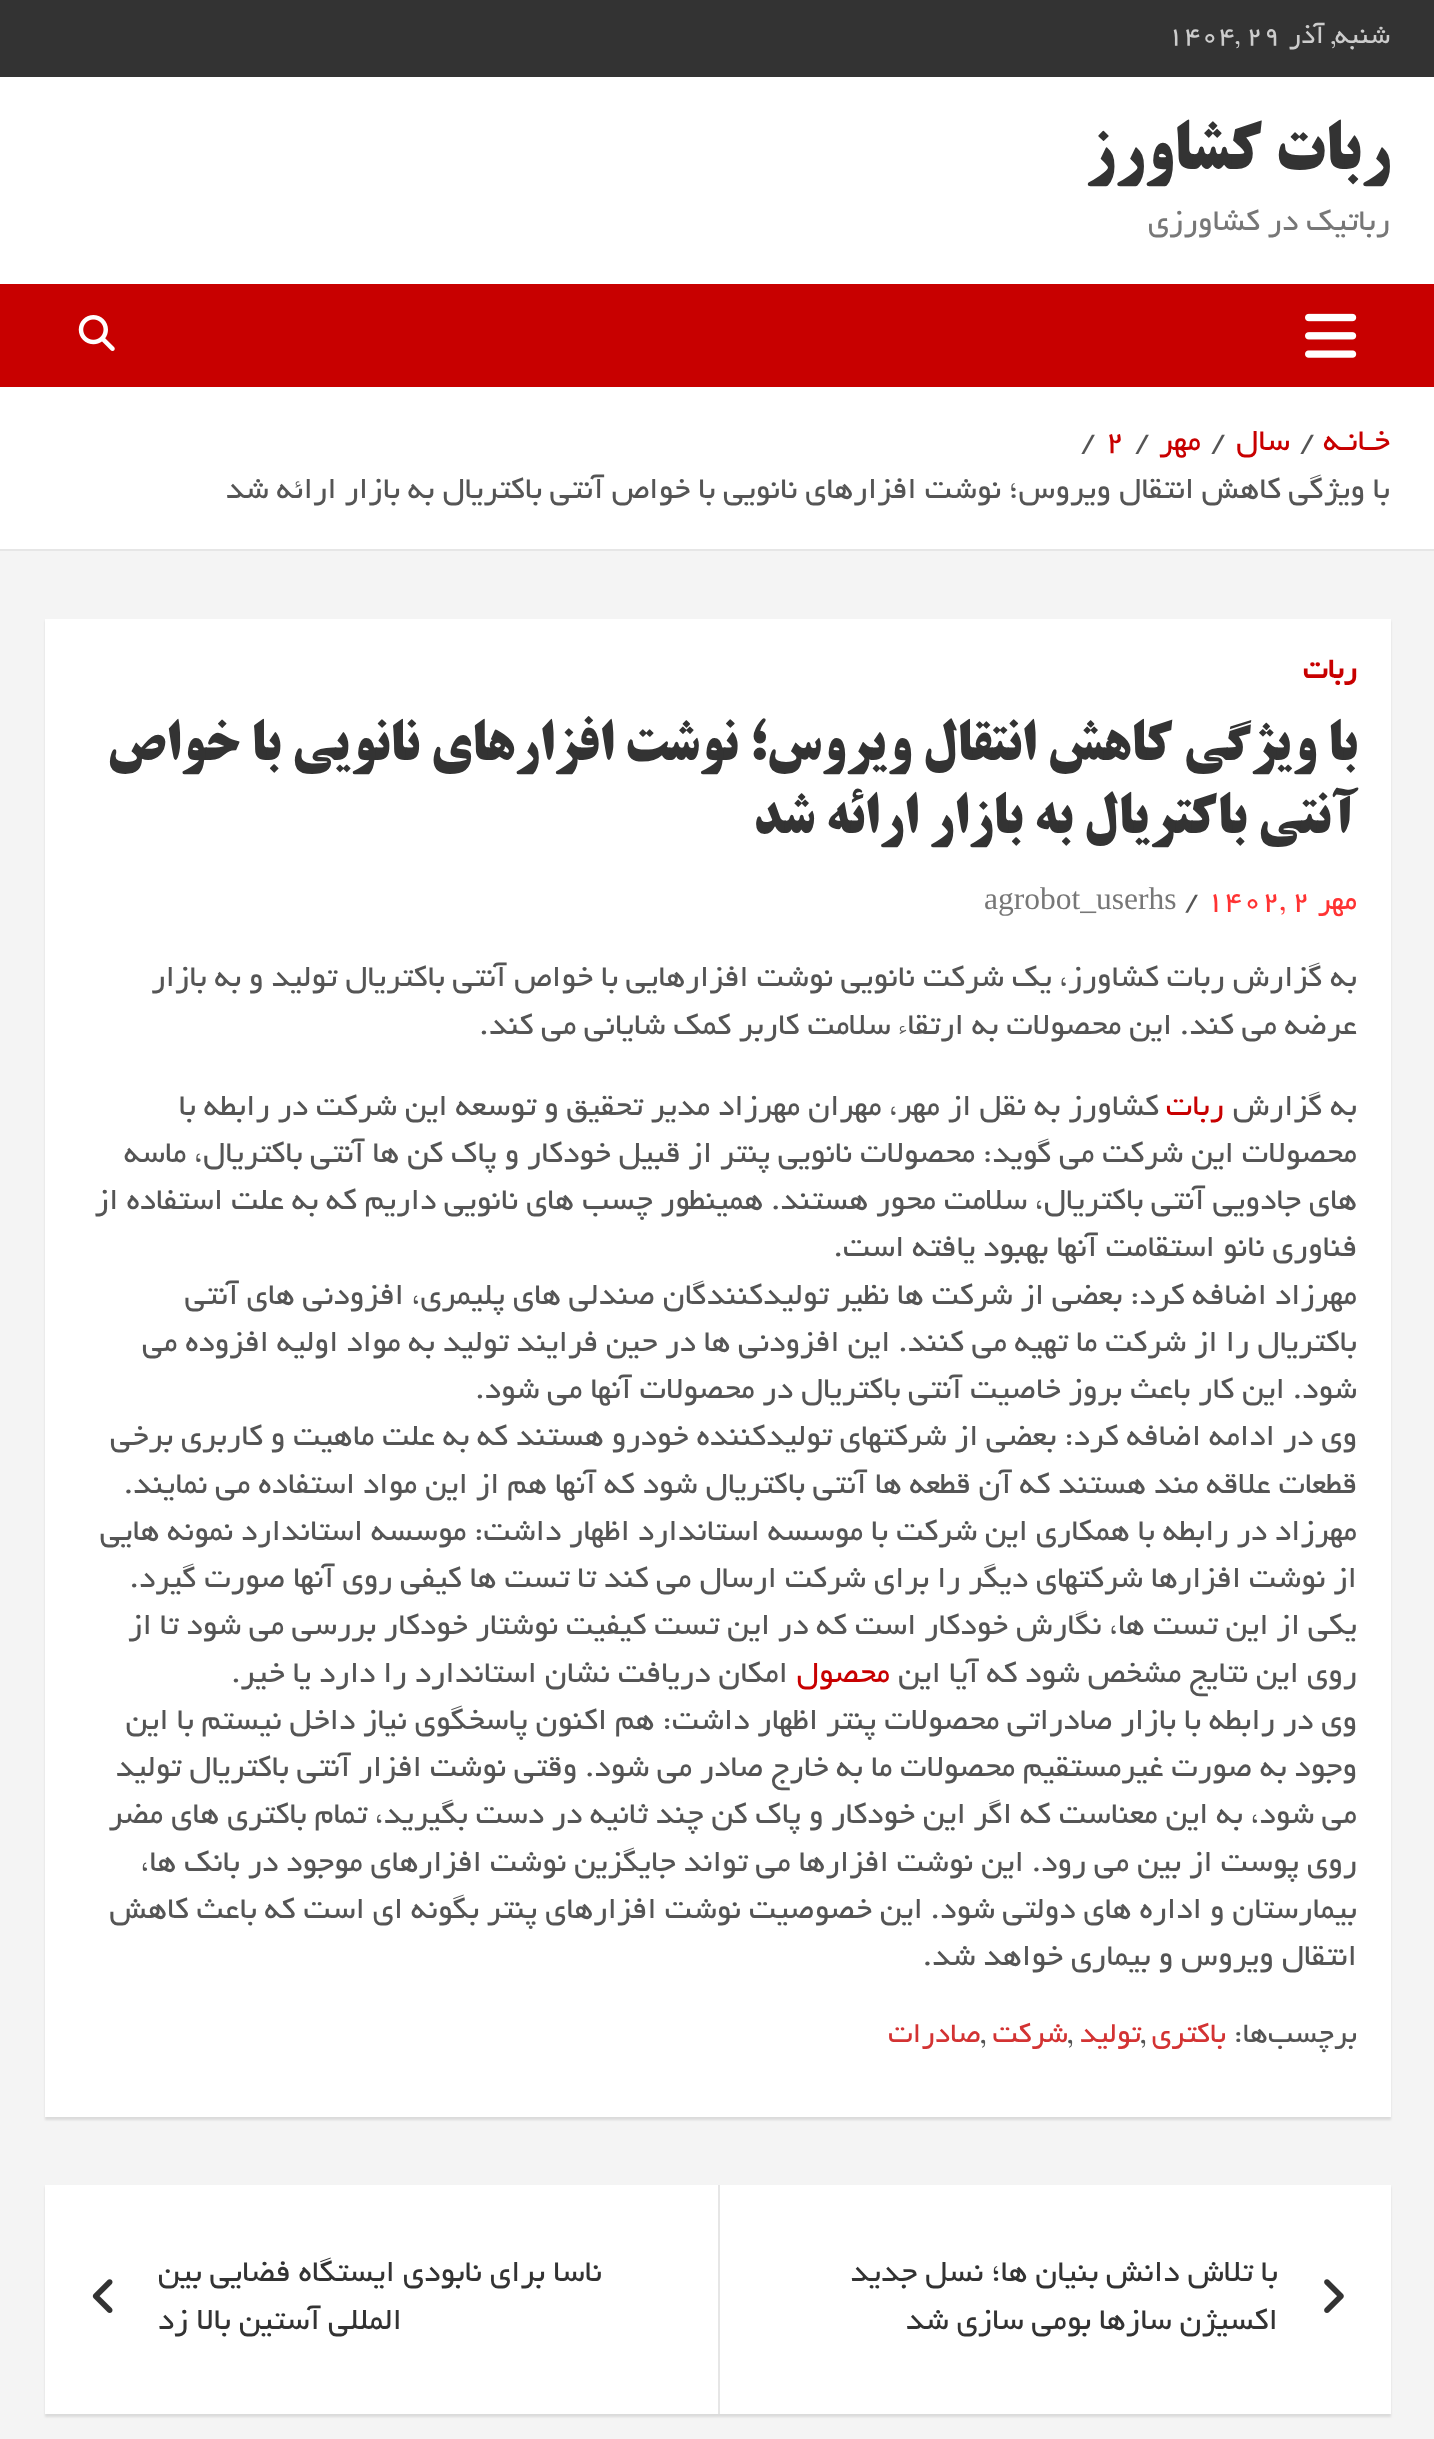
<svg xmlns="http://www.w3.org/2000/svg" width="1434" height="2439">
<rect width="100%" height="100%" fill="#f4f4f4"/>
<rect width="1434" height="77" fill="#333"/>
<text x="1390" y="43" style="font-family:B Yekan;font-size:29px;direction:rtl;fill:#ccc">شنبه, آذر</text>
<text x="1167" y="43" style="font-family:B Yekan;font-size:29px;fill:#ccc">۱۴۰۴, ۲۹</text>
<rect y="77" width="1434" height="207" fill="#fff"/>
<text x="1390" y="169" style="font-family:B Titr;font-size:67.5px;font-weight:bold;direction:rtl;fill:#333">ربات کشاورز</text>
<text x="1390" y="230" style="font-family:B Yekan;font-size:33.75px;direction:rtl;fill:#777">رباتیک در کشاورزی</text>
<rect y="284" width="1434" height="103" fill="#c80000"/>
<image x="1305" y="313" width="52" height="45" href="media/1.png"/>
<image x="78" y="315" width="37" height="36" href="media/2.png"/>
<rect y="387" width="1434" height="162" fill="#fff"/>
<rect y="549" width="1434" height="2" fill="#e6e6e6"/>
<text x="1390" y="450" style="font-family:B Yekan;font-size:33.75px;direction:rtl;fill:#c80000">خـانـه</text>
<text x="1299" y="450" style="font-family:B Yekan;font-size:33.75px;fill:#555">/</text>
<text x="1290" y="450" style="font-family:B Yekan;font-size:33.75px;direction:rtl;fill:#c80000">سال</text>
<text x="1210" y="450" style="font-family:B Yekan;font-size:33.75px;fill:#555">/</text>
<text x="1201" y="450" style="font-family:B Yekan;font-size:33.75px;direction:rtl;fill:#c80000">مهر</text>
<text x="1134" y="450" style="font-family:B Yekan;font-size:33.75px;fill:#555">/</text>
<text x="1105" y="450" style="font-family:B Yekan;font-size:33.75px;fill:#c80000">2</text>
<text x="1080" y="450" style="font-family:B Yekan;font-size:33.75px;fill:#555">/</text>
<text x="1390" y="498" style="font-family:B Yekan;font-size:33.75px;direction:rtl;fill:#555">با ویژگی كاهش انتقال ویروس؛ نوشت افزارهای نانویی با خواص آنتی باکتریال به بازار ارائه شد</text>
<rect x="45" y="621" width="1346" height="1499" fill="#0000001a" filter="blur(1px)"/>
<rect x="45" y="619" width="1346" height="1498" fill="#fff"/>
<text x="1357" y="678" style="font-family:B Yekan;font-size:31.5px;font-weight:bold;direction:rtl;fill:#c80000">ربات</text>
<text x="1357" y="760" style="font-family:B Titr;font-size:56.25px;font-weight:bold;direction:rtl;fill:#333">با ویژگی کاهش انتقال ویروس؛ نوشت افزارهای نانویی با خواص</text>
<text x="1357" y="833" style="font-family:B Titr;font-size:56.25px;font-weight:bold;direction:rtl;fill:#333">آنتی باکتریال به بازار ارائه شد</text>
<text x="1357" y="909" style="font-family:B Yekan;font-size:31.5px;direction:rtl;fill:#f33">مهر</text>
<text x="1206" y="909" style="font-family:B Yekan;font-size:31.5px;fill:#f33">1402, 2</text>
<text x="1184" y="909" style="font-family:B Yekan;font-size:31.5px;fill:#555">/</text>
<text x="984" y="909" style="font-family:Liberation Serif;font-size:31.5px;fill:#777">agrobot_userhs</text>
<text x="1357" y="986" style="font-family:B Yekan;font-size:33.75px;direction:rtl;fill:#555">به گزارش ربات کشاورز، یک شرکت نانویی نوشت افزارهایی با خواص آنتی باکتریال تولید و به بازار</text>
<text x="1357" y="1034" style="font-family:B Yekan;font-size:33.75px;direction:rtl;fill:#555">عرضه می کند. این محصولات به ارتقاء سلامت کاربر کمک شایانی می کند.</text>
<text x="1357" y="1115" style="font-family:B Yekan;font-size:33.75px;direction:rtl;fill:#555">به گزارش</text>
<text x="1224" y="1115" style="font-family:B Yekan;font-size:33.75px;direction:rtl;fill:#c80000">ربات</text>
<text x="1159" y="1115" style="font-family:B Yekan;font-size:33.75px;direction:rtl;fill:#555">کشاورز به نقل از مهر، مهران مهرزاد مدیر تحقیق و توسعه این شرکت در رابطه با</text>
<text x="1357" y="1162" style="font-family:B Yekan;font-size:33.75px;direction:rtl;fill:#555">محصولات این شرکت می گوید: محصولات نانویی پنتر از قبیل خودکار و پاک کن ها آنتی باکتریال، ماسه</text>
<text x="1357" y="1209" style="font-family:B Yekan;font-size:33.75px;direction:rtl;fill:#555">های جادویی آنتی باکتریال، سلامت محور هستند. همینطور چسب های نانویی داریم که به علت استفاده از</text>
<text x="1357" y="1256" style="font-family:B Yekan;font-size:33.75px;direction:rtl;fill:#555">فناوری نانو استقامت آنها بهبود یافته است.</text>
<text x="1357" y="1304" style="font-family:B Yekan;font-size:33.75px;direction:rtl;fill:#555">مهرزاد اضافه کرد: بعضی از شرکت ها نظیر تولیدکنندگان صندلی های پلیمری، افزودنی های آنتی</text>
<text x="1357" y="1351" style="font-family:B Yekan;font-size:33.75px;direction:rtl;fill:#555">باکتریال را از شرکت ما تهیه می کنند. این افزودنی ها در حین فرایند تولید به مواد اولیه افزوده می</text>
<text x="1357" y="1398" style="font-family:B Yekan;font-size:33.75px;direction:rtl;fill:#555">شود. این کار باعث بروز خاصیت آنتی باکتریال در محصولات آنها می شود.</text>
<text x="1357" y="1445" style="font-family:B Yekan;font-size:33.75px;direction:rtl;fill:#555">وی در ادامه اضافه کرد: بعضی از شرکتهای تولیدکننده خودرو هستند که به علت ماهیت و کاربری برخی</text>
<text x="1357" y="1493" style="font-family:B Yekan;font-size:33.75px;direction:rtl;fill:#555">قطعات علاقه مند هستند که آن قطعه ها آنتی باکتریال شود که آنها هم از این مواد استفاده می نمایند.</text>
<text x="1357" y="1540" style="font-family:B Yekan;font-size:33.75px;direction:rtl;fill:#555">مهرزاد در رابطه با همکاری این شرکت با موسسه استاندارد اظهار داشت: موسسه استاندارد نمونه هایی</text>
<text x="1357" y="1587" style="font-family:B Yekan;font-size:33.75px;direction:rtl;fill:#555">از نوشت افزارها شرکتهای دیگر را برای شرکت ارسال می کند تا تست ها کیفی روی آنها صورت گیرد.</text>
<text x="1357" y="1634" style="font-family:B Yekan;font-size:33.75px;direction:rtl;fill:#555">یکی از این تست ها، نگارش خودکار است که در این تست کیفیت نوشتار خودکار بررسی می شود تا از</text>
<text x="1357" y="1682" style="font-family:B Yekan;font-size:33.75px;direction:rtl;fill:#555">روی این نتایج مشخص شود که آیا این</text>
<text x="890" y="1682" style="font-family:B Yekan;font-size:33.75px;direction:rtl;fill:#c80000">محصول</text>
<text x="788" y="1682" style="font-family:B Yekan;font-size:33.75px;direction:rtl;fill:#555">امکان دریافت نشان استاندارد را دارد یا خیر.</text>
<text x="1357" y="1729" style="font-family:B Yekan;font-size:33.75px;direction:rtl;fill:#555">وی در رابطه با بازار صادراتی محصولات پنتر اظهار داشت: هم اکنون پاسخگوی نیاز داخل نیستم با این</text>
<text x="1357" y="1776" style="font-family:B Yekan;font-size:33.75px;direction:rtl;fill:#555">وجود به صورت غیرمستقیم محصولات ما به خارج صادر می شود. وقتی نوشت افزار آنتی باکتریال تولید</text>
<text x="1357" y="1823" style="font-family:B Yekan;font-size:33.75px;direction:rtl;fill:#555">می شود، به این معناست که اگر این خودکار و پاک کن چند ثانیه در دست بگیرید، تمام باکتری های مضر</text>
<text x="1357" y="1871" style="font-family:B Yekan;font-size:33.75px;direction:rtl;fill:#555">روی پوست از بین می رود. این نوشت افزارها می تواند جایگزین نوشت افزارهای موجود در بانک ها،</text>
<text x="1357" y="1918" style="font-family:B Yekan;font-size:33.75px;direction:rtl;fill:#555">بیمارستان و اداره های دولتی شود. این خصوصیت نوشت افزارهای پنتر بگونه ای است که باعث کاهش</text>
<text x="1357" y="1965" style="font-family:B Yekan;font-size:33.75px;direction:rtl;fill:#555">انتقال ویروس و بیماری خواهد شد.</text>
<text x="1357" y="2042" style="font-family:B Yekan;font-size:31.5px;direction:rtl;fill:#555">برچسب‌ها:</text>
<text x="1226" y="2042" style="font-family:B Yekan;font-size:31.5px;direction:rtl;fill:#d33333">باكتری</text>
<text x="1141" y="2042" style="font-family:B Yekan;font-size:31.5px;fill:#555">,</text>
<text x="1141" y="2042" style="font-family:B Yekan;font-size:31.5px;direction:rtl;fill:#d33333">تولید</text>
<text x="1068" y="2042" style="font-family:B Yekan;font-size:31.5px;fill:#555">,</text>
<text x="1068" y="2042" style="font-family:B Yekan;font-size:31.5px;direction:rtl;fill:#d33333">شركت</text>
<text x="981" y="2042" style="font-family:B Yekan;font-size:31.5px;fill:#555">,</text>
<text x="981" y="2042" style="font-family:B Yekan;font-size:31.5px;direction:rtl;fill:#d33333">صادرات</text>
<rect x="45" y="2187" width="1346" height="230" fill="#0000001a" filter="blur(1px)"/>
<rect x="45" y="2185" width="1346" height="229" fill="#fff"/>
<text x="1278" y="2281" style="font-family:B Yekan;font-size:33.75px;direction:rtl;fill:#333">با تلاش دانش بنیان ها؛ نسل جدید</text>
<image x="1324" y="2279" width="20" height="34" href="media/3.png"/>
<text x="1278" y="2329" style="font-family:B Yekan;font-size:33.75px;direction:rtl;fill:#333">اکسیژن سازها بومی سازی شد</text>
<rect x="718" y="2185" width="2" height="229" fill="#e6e6e6"/>
<text x="602" y="2281" style="font-family:B Yekan;font-size:33.75px;direction:rtl;fill:#333">ناسا برای نابودی ایستگاه فضایی بین</text>
<image x="92" y="2279" width="21" height="34" href="media/4.png"/>
<text x="402" y="2329" style="font-family:B Yekan;font-size:33.75px;direction:rtl;fill:#333">المللی آستین بالا زد</text>
</svg>
